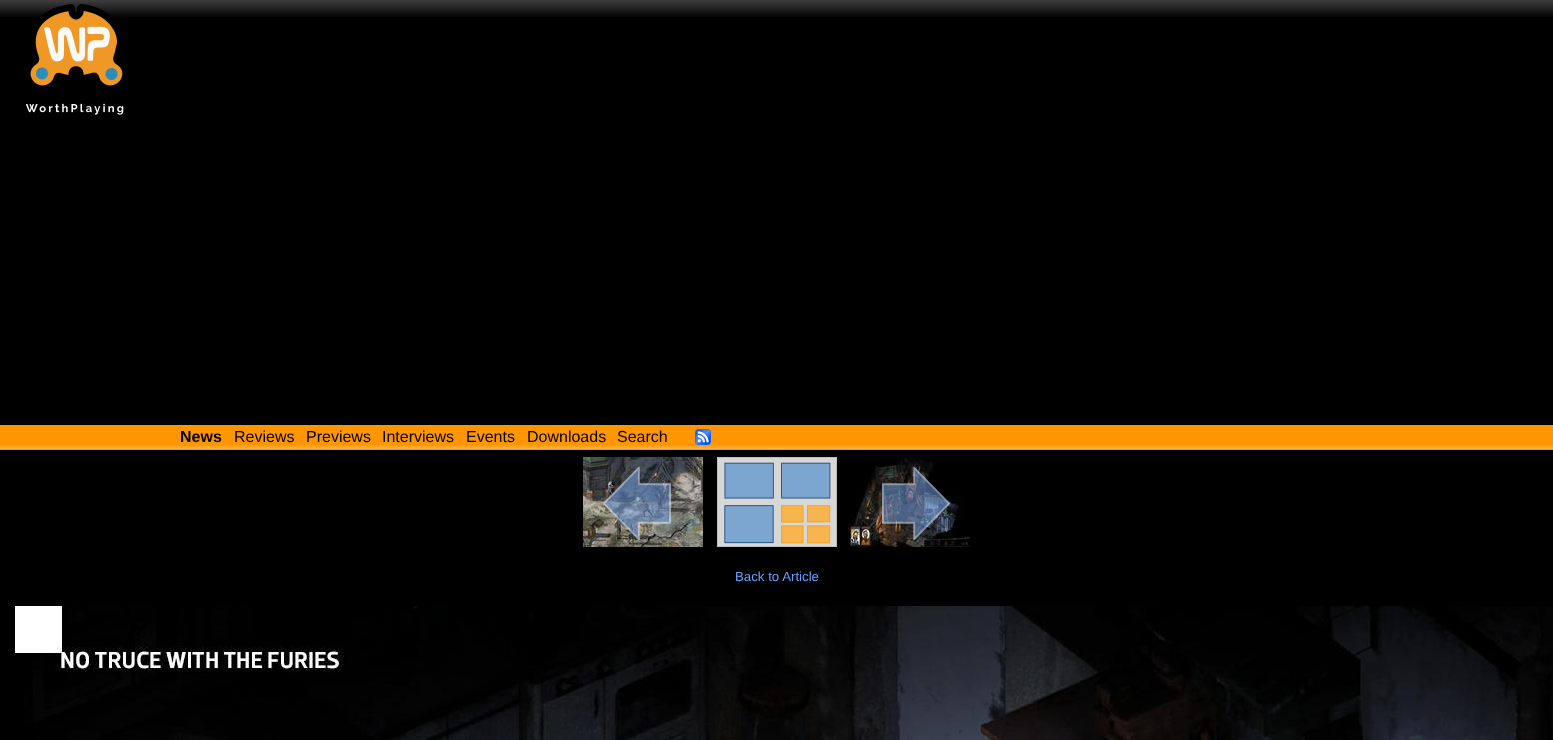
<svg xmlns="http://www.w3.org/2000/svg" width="1553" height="740">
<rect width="100%" height="100%" fill="#000"/>
<image x="0" y="0" width="1553" height="17" href="media/1.png"/>
<image x="25" y="4" width="99" height="111" href="media/2.png"/>
<rect y="425" width="1553" height="25" fill="#ff9600"/>
<image x="0" y="445" width="1553" height="4" href="media/3.png"/>
<text x="180" y="442" style="font-family:Liberation Sans;font-size:16px;font-weight:bold;fill:#000">News</text>
<text x="234" y="442" style="font-family:Liberation Sans;font-size:16px;fill:#000">Reviews</text>
<text x="306" y="442" style="font-family:Liberation Sans;font-size:16px;fill:#000">Previews</text>
<text x="382" y="442" style="font-family:Liberation Sans;font-size:16px;fill:#000">Interviews</text>
<text x="466" y="442" style="font-family:Liberation Sans;font-size:16px;fill:#000">Events</text>
<text x="527" y="442" style="font-family:Liberation Sans;font-size:16px;fill:#000">Downloads</text>
<text x="617" y="442" style="font-family:Liberation Sans;font-size:16px;fill:#000">Search</text>
<image x="695" y="429" width="16" height="16" href="media/4.png"/>
<image x="583" y="457" width="120" height="90" href="media/5.png"/>
<image x="603" y="467" width="68" height="73" href="media/6.png"/>
<image x="717" y="457" width="120" height="90" href="media/7.png"/>
<image x="850" y="457" width="120" height="90" href="media/8.png"/>
<image x="882" y="467" width="68" height="73" href="media/9.png"/>
<text x="735" y="581" style="font-family:Liberation Sans;font-size:13.25px;fill:#66a3ff">Back to Article</text>
<image x="15" y="606" width="1538" height="134" href="media/10.png"/>
</svg>
